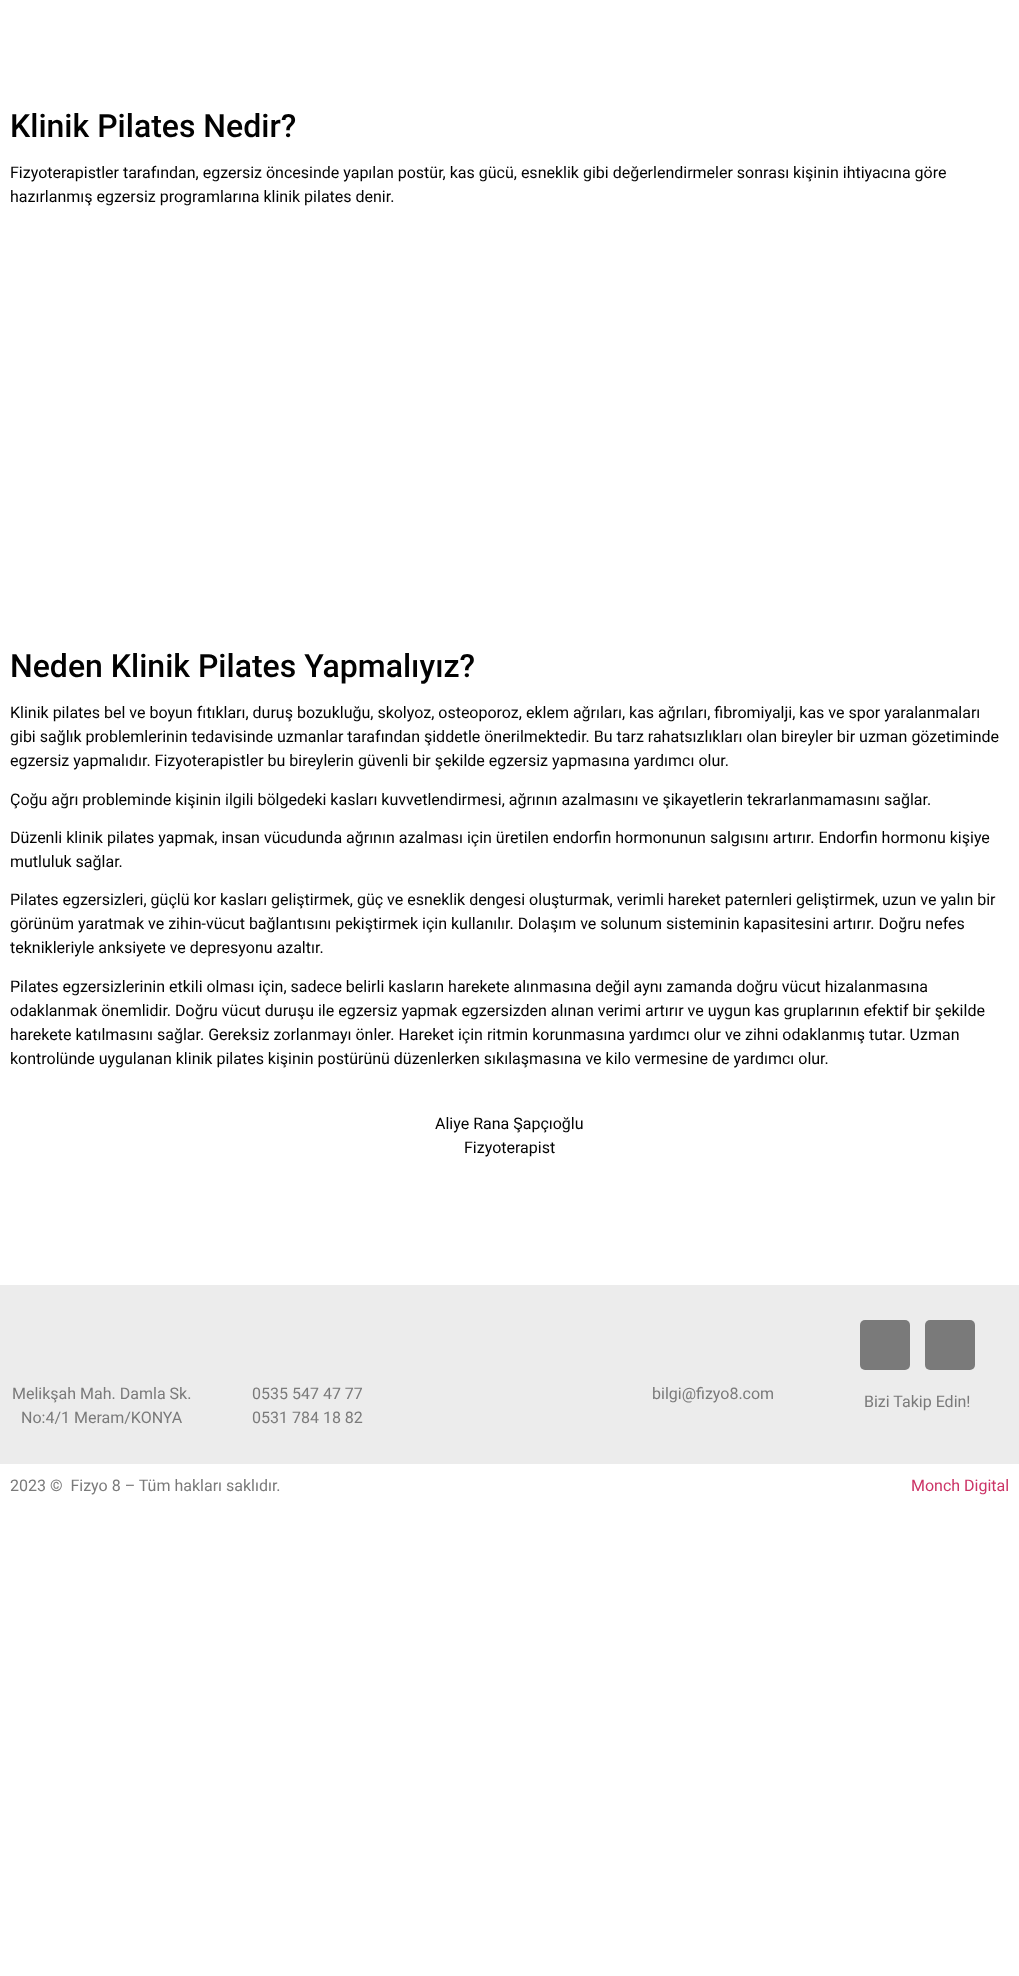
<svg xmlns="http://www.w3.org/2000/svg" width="1019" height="1976">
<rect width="100%" height="100%" fill="#fff"/>
<text x="10" y="137" style="font-family:Roboto;font-size:32px;font-weight:500;fill:#020202">Klinik Pilates Nedir?</text>
<text x="10" y="178" style="font-family:Roboto;font-size:16px;fill:#020202">Fizyoterapistler tarafından, egzersiz öncesinde yapılan postür, kas gücü, esneklik gibi değerlendirmeler sonrası kişinin ihtiyacına göre</text>
<text x="10" y="202" style="font-family:Roboto;font-size:16px;fill:#020202">hazırlanmış egzersiz programlarına klinik pilates denir.</text>
<text x="10" y="677" style="font-family:Roboto;font-size:32px;font-weight:500;fill:#020202">Neden Klinik Pilates Yapmalıyız?</text>
<text x="10" y="718" style="font-family:Roboto;font-size:16px;fill:#020202">Klinik pilates bel ve boyun fıtıkları, duruş bozukluğu, skolyoz, osteoporoz, eklem ağrıları, kas ağrıları, fibromiyalji, kas ve spor yaralanmaları</text>
<text x="10" y="742" style="font-family:Roboto;font-size:16px;fill:#020202">gibi sağlık problemlerinin tedavisinde uzmanlar tarafından şiddetle önerilmektedir. Bu tarz rahatsızlıkları olan bireyler bir uzman gözetiminde</text>
<text x="10" y="766" style="font-family:Roboto;font-size:16px;fill:#020202">egzersiz yapmalıdır. Fizyoterapistler bu bireylerin güvenli bir şekilde egzersiz yapmasına yardımcı olur.</text>
<text x="10" y="805" style="font-family:Roboto;font-size:16px;fill:#020202">Çoğu ağrı probleminde kişinin ilgili bölgedeki kasları kuvvetlendirmesi, ağrının azalmasını ve şikayetlerin tekrarlanmamasını sağlar.</text>
<text x="10" y="843" style="font-family:Roboto;font-size:16px;fill:#020202">Düzenli klinik pilates yapmak, insan vücudunda ağrının azalması için üretilen endorfin hormonunun salgısını artırır. Endorfin hormonu kişiye</text>
<text x="10" y="867" style="font-family:Roboto;font-size:16px;fill:#020202">mutluluk sağlar.</text>
<text x="10" y="905" style="font-family:Roboto;font-size:16px;fill:#020202">Pilates egzersizleri, güçlü kor kasları geliştirmek, güç ve esneklik dengesi oluşturmak, verimli hareket paternleri geliştirmek, uzun ve yalın bir</text>
<text x="10" y="929" style="font-family:Roboto;font-size:16px;fill:#020202">görünüm yaratmak ve zihin-vücut bağlantısını pekiştirmek için kullanılır. Dolaşım ve solunum sisteminin kapasitesini artırır. Doğru nefes</text>
<text x="10" y="953" style="font-family:Roboto;font-size:16px;fill:#020202">teknikleriyle anksiyete ve depresyonu azaltır.</text>
<text x="10" y="992" style="font-family:Roboto;font-size:16px;fill:#020202">Pilates egzersizlerinin etkili olması için, sadece belirli kasların harekete alınmasına değil aynı zamanda doğru vücut hizalanmasına</text>
<text x="10" y="1016" style="font-family:Roboto;font-size:16px;fill:#020202">odaklanmak önemlidir. Doğru vücut duruşu ile egzersiz yapmak egzersizden alınan verimi artırır ve uygun kas gruplarının efektif bir şekilde</text>
<text x="10" y="1040" style="font-family:Roboto;font-size:16px;fill:#020202">harekete katılmasını sağlar. Gereksiz zorlanmayı önler. Hareket için ritmin korunmasına yardımcı olur ve zihni odaklanmış tutar. Uzman</text>
<text x="10" y="1064" style="font-family:Roboto;font-size:16px;fill:#020202">kontrolünde uygulanan klinik pilates kişinin postürünü düzenlerken sıkılaşmasına ve kilo vermesine de yardımcı olur.</text>
<text x="435" y="1129" style="font-family:Roboto;font-size:16px;fill:#020202">Aliye Rana Şapçıoğlu</text>
<text x="464" y="1153" style="font-family:Roboto;font-size:16px;fill:#020202">Fizyoterapist</text>
<rect y="1285" width="1019" height="179" fill="#ececec"/>
<text x="12" y="1399" style="font-family:Roboto;font-size:16px;fill:#7a7a7a">Melikşah Mah. Damla Sk.</text>
<text x="21" y="1423" style="font-family:Roboto;font-size:16px;fill:#7a7a7a">No:4/1 Meram/KONYA</text>
<text x="252" y="1399" style="font-family:Roboto;font-size:16px;fill:#7a7a7a">0535 547 47 77</text>
<text x="252" y="1423" style="font-family:Roboto;font-size:16px;fill:#7a7a7a">0531 784 18 82</text>
<text x="652" y="1399" style="font-family:Roboto;font-size:16px;fill:#7a7a7a">bilgi@fizyo8.com</text>
<rect x="860" y="1320" width="50" height="50" rx="5" fill="#7a7a7a"/>
<rect x="925" y="1320" width="50" height="50" rx="5" fill="#7a7a7a"/>
<text x="864" y="1407" style="font-family:Roboto;font-size:16px;fill:#7a7a7a">Bizi Takip Edin!</text>
<text x="10" y="1491" style="font-family:Roboto;font-size:16px;fill:#7a7a7a" xml:space="preserve">2023 ©  Fizyo 8 – Tüm hakları saklıdır.</text>
<text x="911" y="1491" style="font-family:Roboto;font-size:16px;fill:#c36">Monch Digital</text>
</svg>
